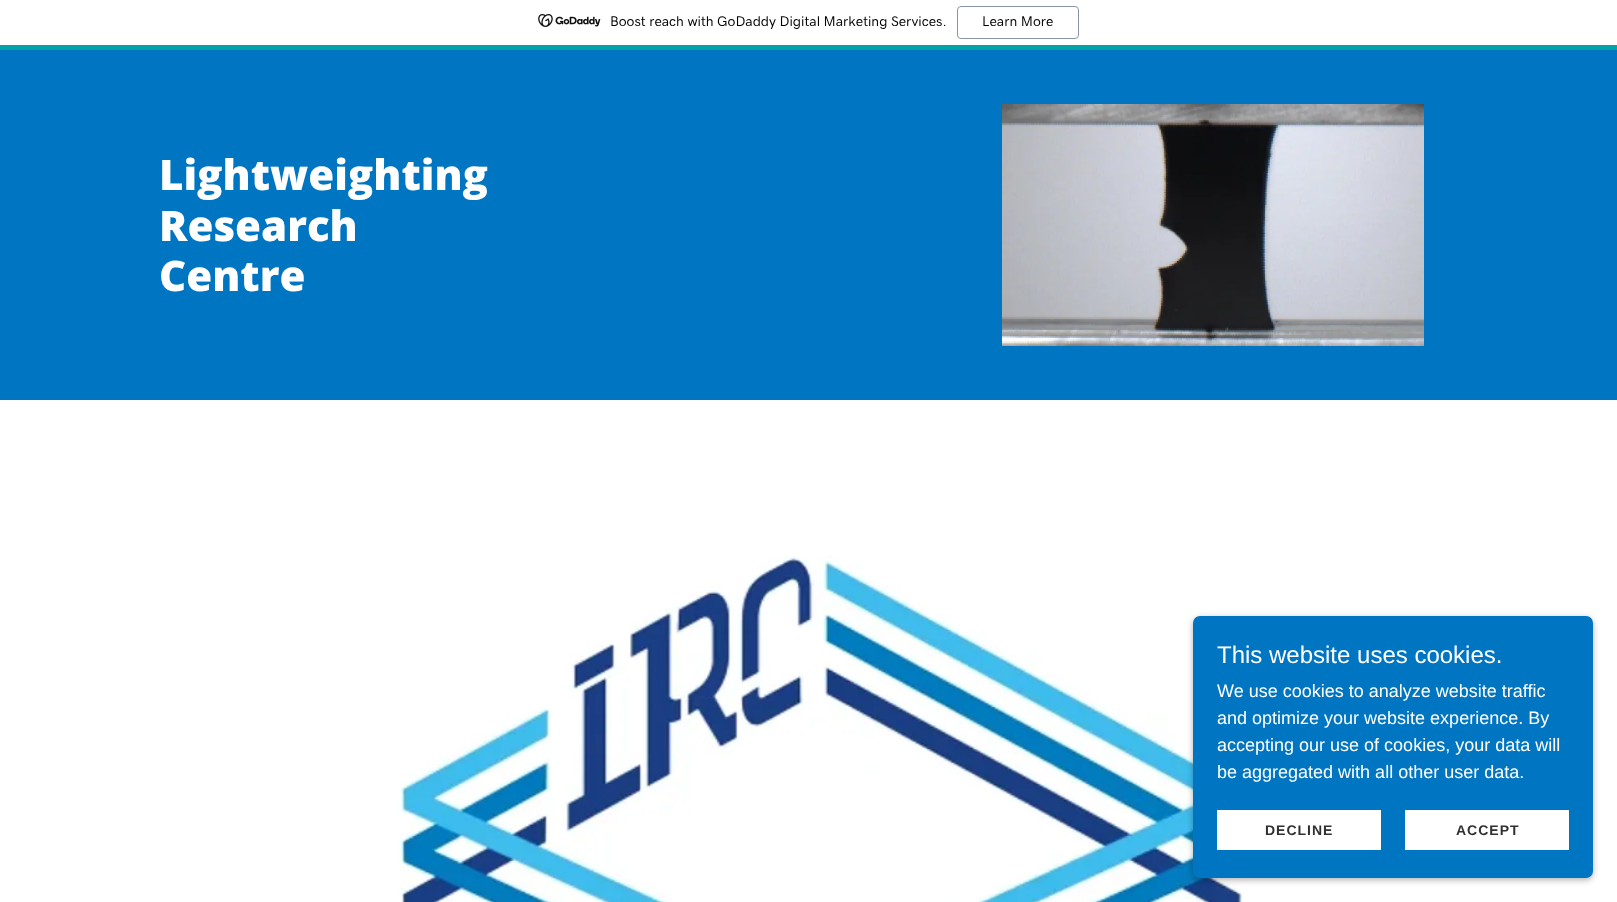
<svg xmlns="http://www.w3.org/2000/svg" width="1617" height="902">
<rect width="100%" height="100%" fill="#0075c1"/>
<rect width="1617" height="45" fill="#fff"/>
<rect y="45" width="1617" height="5" fill="#00a4a6"/>
<image x="538" y="14" width="63" height="13" href="media/1.png"/>
<text x="610" y="26" style="font-family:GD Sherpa;font-size:14px;font-weight:500;fill:#000">Boost reach with GoDaddy Digital Marketing Services.</text>
<rect x="957.5" y="6.5" width="121" height="32" rx="3.5" fill="none" stroke="#8995a9"/>
<text x="982" y="26" style="font-family:GD Sherpa;font-size:14px;font-weight:500;fill:#000">Learn More</text>
<text x="159" y="190" style="font-family:Open Sans;font-size:42px;font-weight:800;fill:#fff">Lightweighting</text>
<text x="159" y="241" style="font-family:Open Sans;font-size:42px;font-weight:800;fill:#fff">Research</text>
<text x="159" y="291" style="font-family:Open Sans;font-size:42px;font-weight:800;fill:#fff">Centre</text>
<image x="1002" y="104" width="422" height="242" href="media/2.png"/>
<rect y="400" width="1617" height="502" fill="#fff"/>
<image x="398" y="556" width="848" height="346" href="media/3.png"/>
<rect x="1193" y="618" width="400" height="262" rx="7" fill="#0000004d" filter="blur(3px)"/>
<rect x="1193" y="616" width="400" height="262" rx="7" fill="#0075c1"/>
<text x="1217" y="663" style="font-family:Liberation Sans;font-size:24px;fill:#fff">This website uses cookies.</text>
<text x="1217" y="697" style="font-family:Liberation Sans;font-size:18px;fill:#fff">We use cookies to analyze website traffic</text>
<text x="1217" y="724" style="font-family:Liberation Sans;font-size:18px;fill:#fff">and optimize your website experience. By</text>
<text x="1217" y="751" style="font-family:Liberation Sans;font-size:18px;fill:#fff">accepting our use of cookies, your data will</text>
<text x="1217" y="778" style="font-family:Liberation Sans;font-size:18px;fill:#fff">be aggregated with all other user data.</text>
<rect x="1217" y="810" width="164" height="40" fill="#fff"/>
<text x="1265" y="835" style="font-family:Liberation Sans;font-size:14px;font-weight:bold;letter-spacing:1px;fill:#303030">DECLINE</text>
<rect x="1405" y="810" width="164" height="40" fill="#fff"/>
<text x="1456" y="835" style="font-family:Liberation Sans;font-size:14px;font-weight:bold;letter-spacing:1px;fill:#303030">ACCEPT</text>
</svg>
